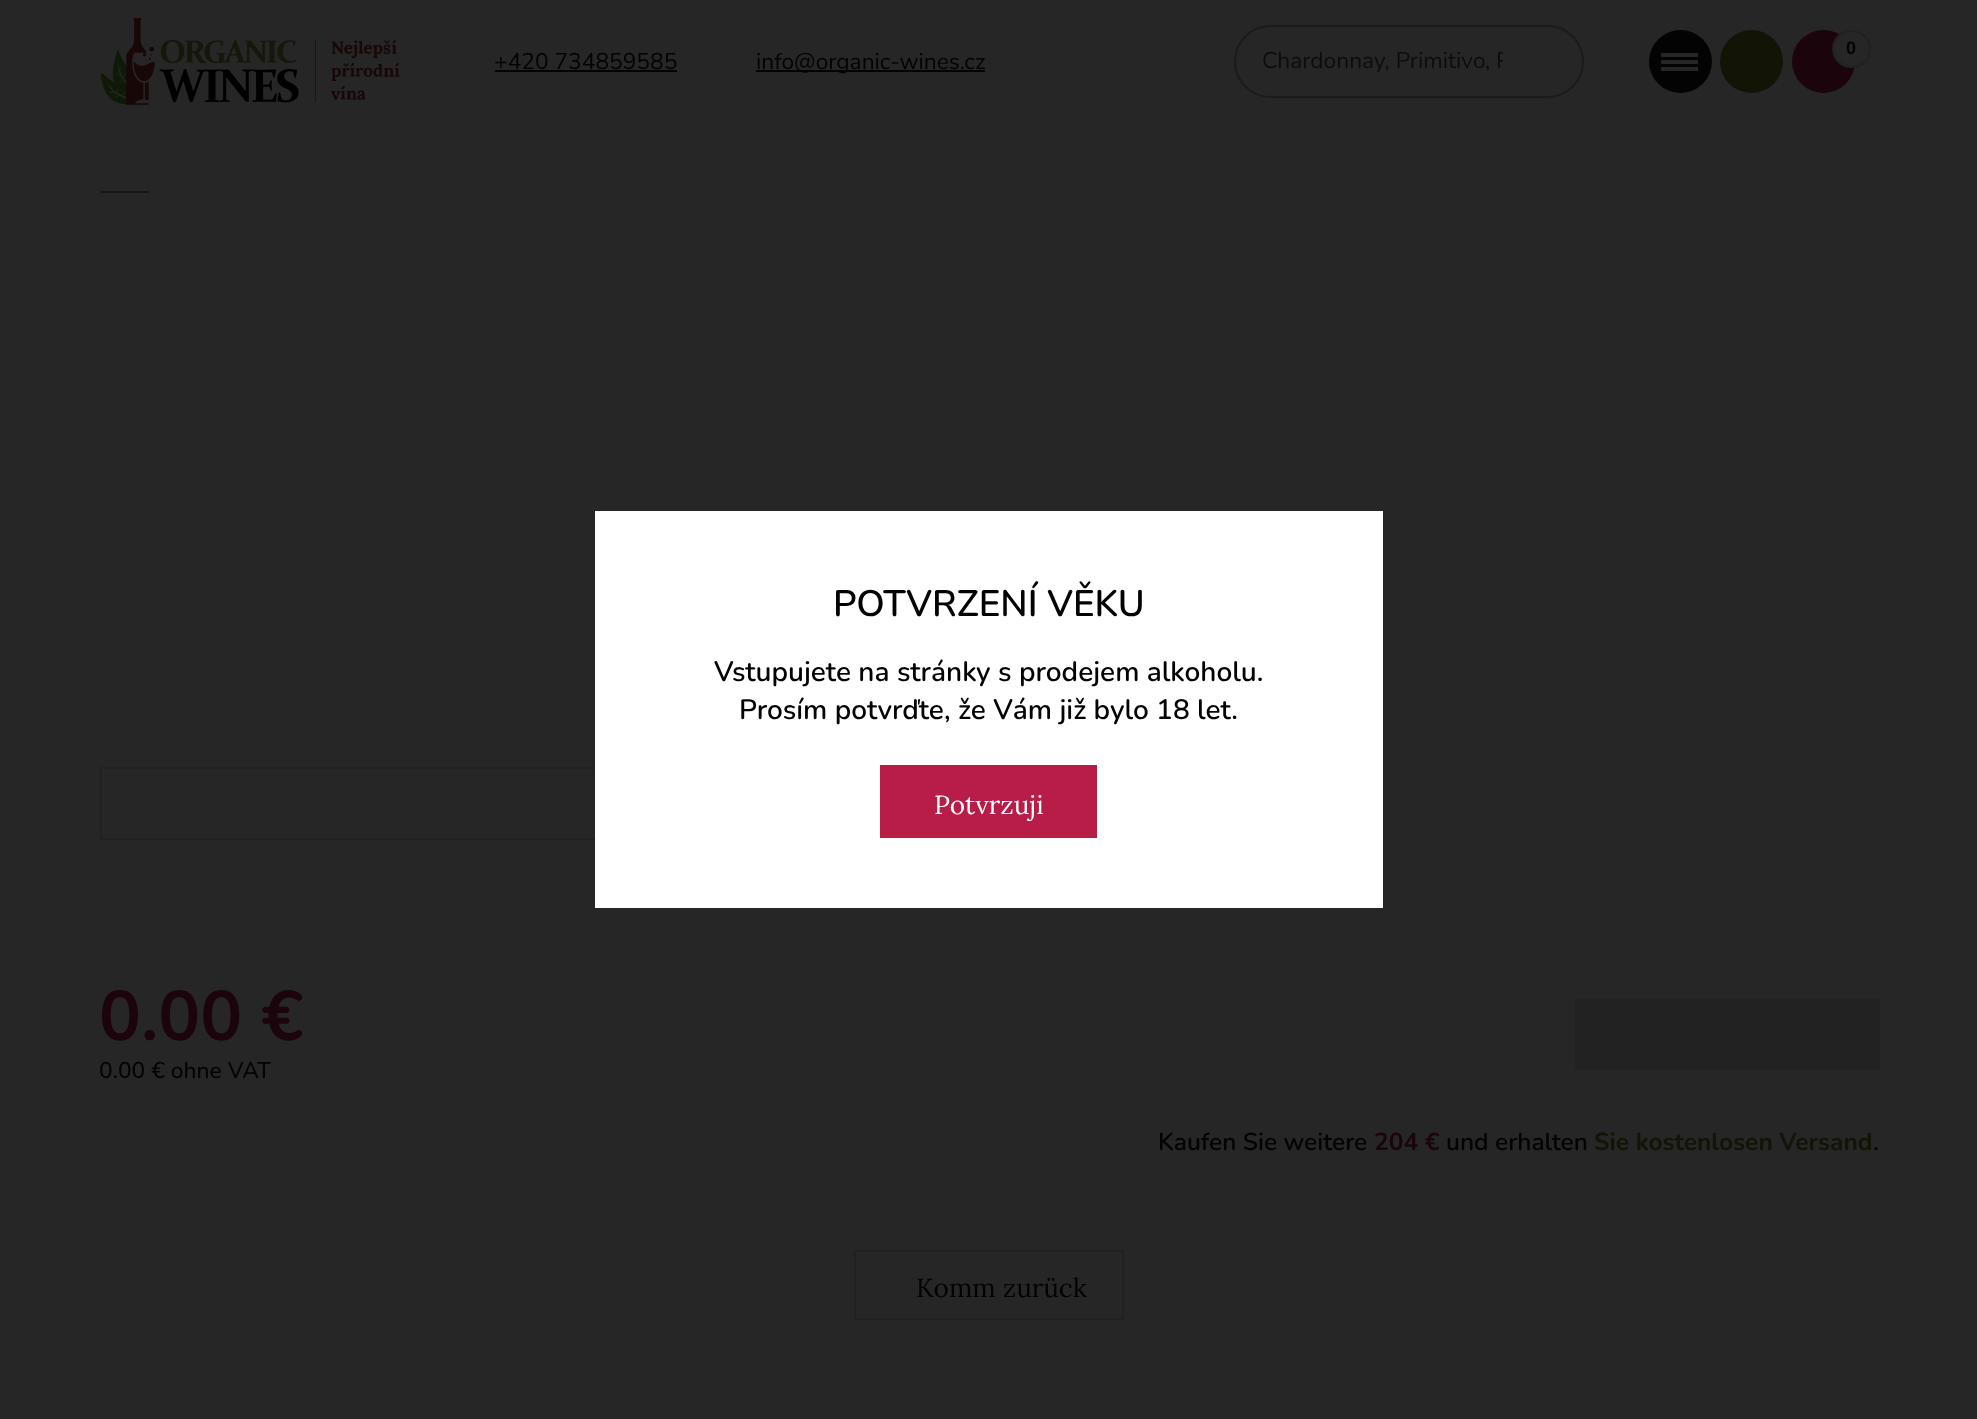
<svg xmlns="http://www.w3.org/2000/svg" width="1977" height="1419">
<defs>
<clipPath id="clip1"><rect x="1262" y="46" width="241" height="31"/></clipPath>
</defs>
<rect width="100%" height="100%" fill="#262626"/>
<image x="100" y="18" width="300" height="87" href="media/1.png"/>
<text x="494" y="69" style="font-family:Nunito;font-size:22.75px;fill:#030303">+420 734859585</text>
<rect x="495" y="70" width="182" height="2" fill="#030303"/>
<rect x="756" y="70" width="229" height="2" fill="#030303"/>
<text x="756" y="69" style="font-family:Nunito;font-size:22.75px;fill:#030303">info@organic-wines.cz</text>
<circle cx="1680.5" cy="61.5" r="31.5" fill="#030303"/>
<rect x="1661" y="60" width="37" height="4" fill="#262626"/>
<rect x="1661" y="53" width="37" height="4" fill="#262626"/>
<rect x="1661" y="67" width="37" height="4" fill="#262626"/>
<circle cx="1751.5" cy="61.5" r="31.5" fill="#121406"/>
<circle cx="1823.5" cy="61.5" r="31.5" fill="#1b040b"/>
<rect x="1833" y="31" width="37" height="36" rx="18" fill="#262626" stroke="#212120" stroke-width="2"/>
<text x="1846" y="54" style="font-family:Liberation Sans;font-size:18px;font-weight:bold;fill:#030303">0</text>
<rect x="1235" y="26" width="348" height="71" rx="35.5" fill="none" stroke="#1b1b1b" stroke-width="2"/>
<g clip-path="url(#clip1)">
<text x="1262" y="68" style="font-family:Nunito;font-size:22.75px;fill:#0d0d0d">Chardonnay, Primitivo, P</text>
</g>
<rect x="101" y="768" width="610" height="71" fill="none" stroke="#212120" stroke-width="2"/>
<rect x="595" y="511" width="788" height="397" fill="#fff"/>
<text x="833" y="616" style="font-family:Nunito;font-size:36.75px;font-weight:600;fill:#030303">POTVRZENÍ VĚKU</text>
<text x="714" y="681" style="font-family:Nunito;font-size:28px;font-weight:600;fill:#030303">Vstupujete na stránky s prodejem alkoholu.</text>
<text x="739" y="719" style="font-family:Nunito;font-size:28px;font-weight:600;fill:#030303">Prosím potvrďte, že Vám již bylo 18 let.</text>
<rect x="880" y="765" width="217" height="73" fill="#b71d47"/>
<text x="934" y="814" style="font-family:Lora;font-size:26.25px;fill:#fff">Potvrzuji</text>
<rect x="100" y="191" width="49" height="2" fill="#171717"/>
<text x="99" y="1040" style="font-family:Nunito;font-size:70px;font-weight:bold;fill:#1b040b">0.00 €</text>
<text x="99" y="1078" style="font-family:Nunito;font-size:22.75px;font-weight:500;fill:#030303">0.00 € ohne VAT</text>
<rect x="1575" y="999" width="305" height="70" fill="#222"/>
<text x="1158" y="1150" style="font-family:Nunito;font-size:24.5px;font-weight:600;fill:#030303">Kaufen Sie weitere</text>
<text x="1374" y="1150" style="font-family:Nunito;font-size:24.5px;font-weight:bold;fill:#1b040b">204 €</text>
<text x="1446" y="1150" style="font-family:Nunito;font-size:24.5px;font-weight:600;fill:#030303">und erhalten</text>
<text x="1594" y="1150" style="font-family:Nunito;font-size:24.5px;font-weight:bold;fill:#121406">Sie kostenlosen Versand</text>
<text x="1873" y="1150" style="font-family:Nunito;font-size:24.5px;font-weight:600;fill:#030303">.</text>
<rect x="855" y="1251" width="268" height="68" fill="none" stroke="#212120" stroke-width="2"/>
<text x="916" y="1297" style="font-family:Lora;font-size:26.25px;fill:#030303">Komm zurück</text>
</svg>
